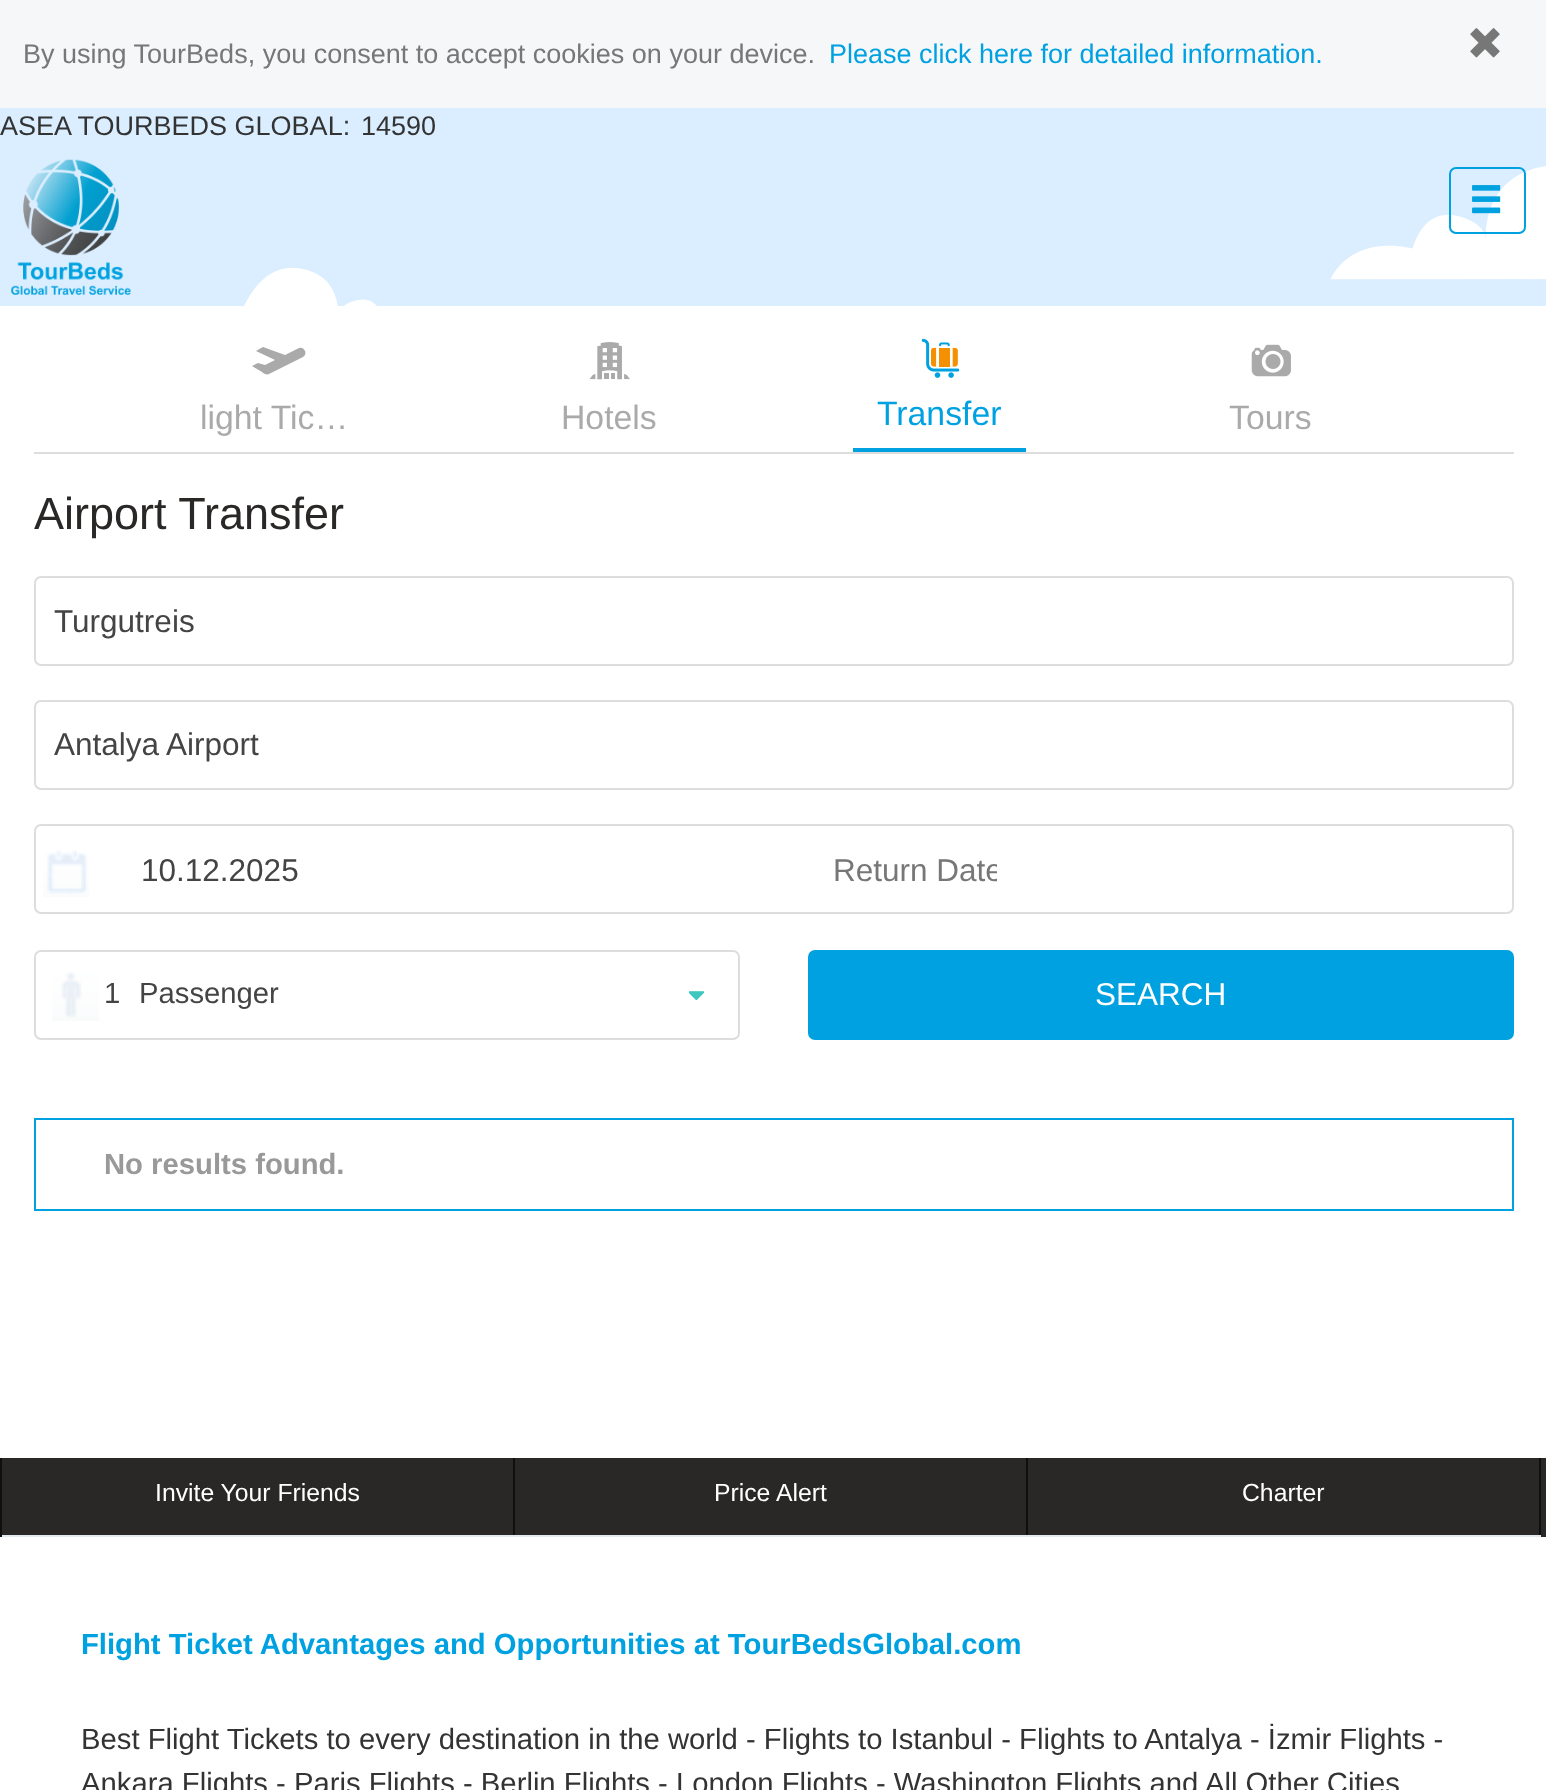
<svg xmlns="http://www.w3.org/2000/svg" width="1546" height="1790">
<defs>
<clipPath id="clip1"><rect x="833" y="853" width="164" height="36"/></clipPath>
</defs>
<rect width="100%" height="100%" fill="#fff"/>
<rect width="1546" height="108" fill="#f6f7f9"/>
<text x="23" y="63" style="font-family:Liberation Sans;font-size:27px;fill:#777">By using TourBeds, you consent to accept cookies on your device.</text>
<text x="829" y="63" style="font-family:Liberation Sans;font-size:27px;fill:#00a1e0">Please click here for detailed information.</text>
<image x="1470" y="28" width="30" height="30" href="media/1.png"/>
<rect y="108" width="1546" height="198" fill="#dbeeff"/>
<image x="244" y="166" width="1302" height="140" href="media/2.png"/>
<text x="0" y="135" style="font-family:Liberation Sans;font-size:27px;fill:#333">ASEA TOURBEDS GLOBAL:</text>
<text x="361" y="135" style="font-family:Liberation Sans;font-size:27px;fill:#333">14590</text>
<image x="11" y="159" width="120" height="136" href="media/3.png"/>
<rect x="1450" y="168" width="75" height="65" rx="6" fill="none" stroke="#00a1e0" stroke-width="2"/>
<image x="1472" y="185" width="29" height="29" href="media/4.png"/>
<rect x="34" y="452" width="1480" height="2" fill="#ddd"/>
<path d="M305 351c-1-3-4-4-6-3l-14 7l-22-8l-7 4l19 9l-10 5l-7-2l-6 3l10 6c2 2 5 3 7 2l34-17c2-1 3-4 2-6z" fill="#aaa"/>
<text x="200" y="429" style="font-family:Liberation Sans;font-size:33.75px;fill:#aaa">light Tic…</text>
<image x="589" y="342" width="41" height="38" href="media/5.png"/>
<text x="561" y="429" style="font-family:Liberation Sans;font-size:33.75px;fill:#aaa">Hotels</text>
<rect x="853" y="448" width="173" height="4" fill="#00a1e0"/>
<image x="921" y="338" width="39" height="40" href="media/6.png"/>
<text x="877" y="425" style="font-family:Liberation Sans;font-size:33.75px;fill:#00a1e0">Transfer</text>
<image x="1251" y="344" width="40" height="33" href="media/7.png"/>
<text x="1229" y="429" style="font-family:Liberation Sans;font-size:33.75px;fill:#aaa">Tours</text>
<text x="34" y="529" style="font-family:Liberation Sans;font-size:45px;fill:#2a2827">Airport Transfer</text>
<rect x="35" y="577" width="1478" height="88" rx="6" fill="none" stroke="#ddd" stroke-width="2"/>
<text x="54" y="632" style="font-family:Liberation Sans;font-size:31.5px;fill:#444">Turgutreis</text>
<rect x="35" y="701" width="1478" height="88" rx="6" fill="none" stroke="#ddd" stroke-width="2"/>
<text x="54" y="755" style="font-family:Liberation Sans;font-size:31.5px;fill:#444">Antalya Airport</text>
<rect x="35" y="825" width="1478" height="88" rx="6" fill="none" stroke="#ddd" stroke-width="2"/>
<image x="43" y="850" width="46" height="47" href="media/8.png"/>
<text x="141" y="881" style="font-family:Liberation Sans;font-size:31.5px;fill:#444">10.12.2025</text>
<g clip-path="url(#clip1)">
<text x="833" y="881" style="font-family:Liberation Sans;font-size:31.5px;fill:#777">Return Date</text>
</g>
<rect x="35" y="951" width="704" height="88" rx="6" fill="none" stroke="#ddd" stroke-width="2"/>
<image x="52" y="972" width="47" height="49" href="media/9.png"/>
<image x="689" y="991" width="15" height="9" href="media/10.png"/>
<text x="104" y="1003" style="font-family:Liberation Sans;font-size:29.25px;fill:#444">1</text>
<text x="139" y="1003" style="font-family:Liberation Sans;font-size:29.25px;fill:#444">Passenger</text>
<rect x="809" y="951" width="704" height="88" rx="6" fill="#00a1e0" stroke="#00a1e0" stroke-width="2"/>
<text x="1095" y="1005" style="font-family:Liberation Sans;font-size:31.5px;fill:#fff">SEARCH</text>
<rect x="35" y="1119" width="1478" height="91" fill="none" stroke="#00a1e0" stroke-width="2"/>
<text x="104" y="1174" style="font-family:Liberation Sans;font-size:29.25px;font-weight:bold;fill:#999">No results found.</text>
<rect x="2" y="1458" width="1544" height="79" fill="#2a2827"/>
<rect x="513" y="1458" width="2" height="79" fill="#100f0f"/>
<rect y="1535" width="515" height="2" fill="#e3eaee"/>
<rect y="1458" width="2" height="79" fill="#100f0f"/>
<text x="155" y="1501" style="font-family:Liberation Sans;font-size:24.75px;fill:#fff">Invite Your Friends</text>
<rect x="1026" y="1458" width="2" height="79" fill="#100f0f"/>
<rect x="515" y="1535" width="513" height="2" fill="#e3eaee"/>
<text x="714" y="1501" style="font-family:Liberation Sans;font-size:24.75px;fill:#fff">Price Alert</text>
<rect x="1539" y="1458" width="2" height="79" fill="#100f0f"/>
<rect x="1028" y="1535" width="513" height="2" fill="#e3eaee"/>
<text x="1242" y="1501" style="font-family:Liberation Sans;font-size:24.75px;fill:#fff">Charter</text>
<text x="81" y="1654" style="font-family:Liberation Sans;font-size:29.25px;font-weight:bold;fill:#00a1e0">Flight Ticket Advantages and Opportunities at TourBedsGlobal.com</text>
<text x="81" y="1749" style="font-family:Liberation Sans;font-size:29.25px;fill:#333">Best Flight Tickets to every destination in the world - Flights to Istanbul - Flights to Antalya - İzmir Flights -</text>
<text x="81" y="1793" style="font-family:Liberation Sans;font-size:29.25px;fill:#333">Ankara Flights - Paris Flights - Berlin Flights - London Flights - Washington Flights and All Other Cities</text>
</svg>
